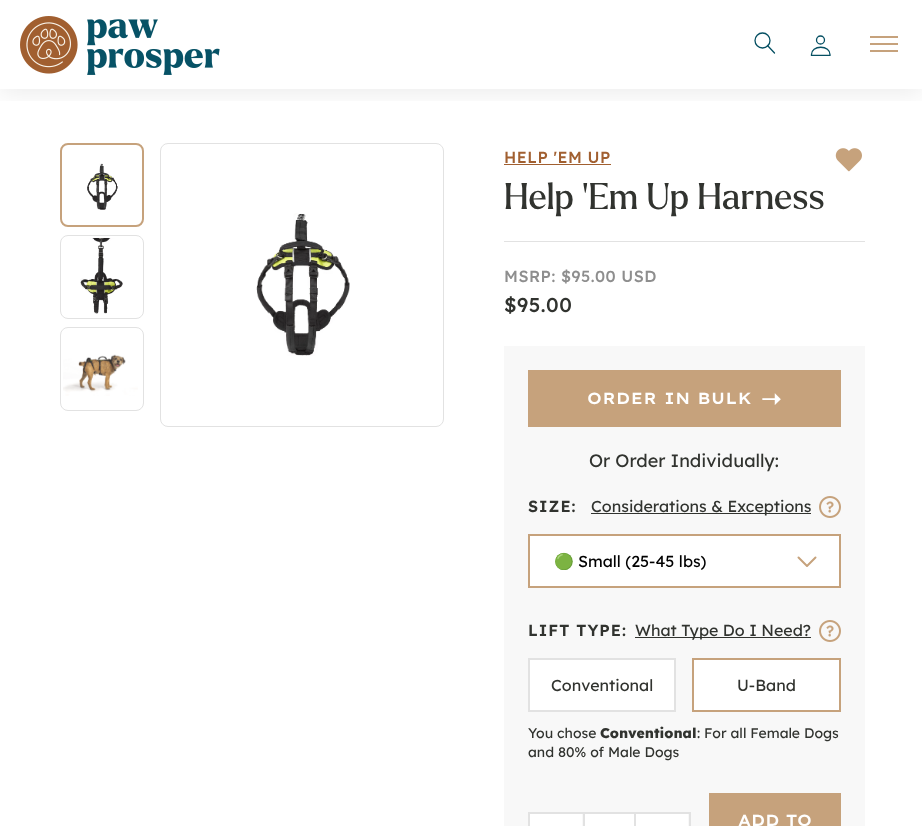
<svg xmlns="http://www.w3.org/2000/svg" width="922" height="826">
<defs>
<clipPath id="clip1"><rect x="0" y="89" width="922" height="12"/></clipPath>
<clipPath id="clip2"><rect x="810" y="35" width="21" height="21"/></clipPath>
<clipPath id="clip3"><rect x="554" y="552" width="261" height="18"/></clipPath>
</defs>
<rect width="100%" height="100%" fill="#fff"/>
<g clip-path="url(#clip1)">
<rect y="4" width="922" height="89" fill="#00000014" filter="blur(12.5px)"/>
</g>
<image x="20" y="16" width="200" height="59" href="media/1.png"/>
<circle cx="762.5" cy="40.5" r="7.5" fill="none" stroke="#054f62" stroke-width="1.3"/>
<path d="M767.5 45.5l7 7.5" fill="none" stroke="#054f62" stroke-width="1.3" stroke-linecap="round"/>
<g clip-path="url(#clip2)">
<path d="M830 55.5h-18.5c-1-11 19.5-11 18.5 0z" fill="none" stroke="#054f62" stroke-width="1.3"/>
</g>
<circle cx="820.5" cy="40" r="4" fill="none" stroke="#054f62" stroke-width="1.3"/>
<rect x="870" y="36" width="28" height="2" fill="#c6a27c"/>
<rect x="870" y="43" width="28" height="2" fill="#c6a27c"/>
<rect x="870" y="50" width="28" height="2" fill="#c6a27c"/>
<rect x="61" y="144" width="82" height="82" rx="7" fill="none" stroke="#c6a27c" stroke-width="2"/>
<image x="87" y="163" width="31" height="47" href="media/2.png"/>
<rect x="60.5" y="235.5" width="83" height="83" rx="7.5" fill="none" stroke="#e2e2e2"/>
<image x="80" y="238" width="43" height="76" href="media/3.png"/>
<rect x="60.5" y="327.5" width="83" height="83" rx="7.5" fill="none" stroke="#e2e2e2"/>
<image x="63" y="354" width="75" height="42" href="media/4.png"/>
<rect x="160.5" y="143.5" width="283" height="283" rx="7.5" fill="none" stroke="#e2e2e2"/>
<image x="256" y="213" width="94" height="143" href="media/5.png"/>
<text x="504" y="163" style="font-family:Lexend;font-size:16px;font-weight:500;letter-spacing:0.5px;fill:#a15f30">HELP 'EM UP</text>
<rect x="504" y="164" width="107" height="1" fill="#a15f30"/>
<rect x="504" y="241" width="361" height="1" fill="#e2e2e2"/>
<text x="504" y="209" style="font-family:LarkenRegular;font-size:36px;fill:#31332f">Help 'Em Up Harness</text>
<text x="504" y="282" style="font-family:Lexend;font-size:16px;font-weight:500;letter-spacing:0.5px;fill:#8e8e8e">MSRP: $95.00 USD</text>
<text x="504" y="312" style="font-family:Lexend;font-size:20px;font-weight:500;letter-spacing:0.5px;fill:#31332f">$95.00</text>
<rect x="504" y="346" width="361" height="480" fill="#f8f8f8"/>
<rect x="528" y="370" width="313" height="57" fill="#c6a27c"/>
<text x="587" y="404" style="font-family:Lexend Exa;font-size:16px;font-weight:600;letter-spacing:0.5px;fill:#fff">ORDER IN BULK</text>
<text x="761" y="407" style="font-family:DejaVu Sans;font-size:24px;font-weight:bold;letter-spacing:0.5px;fill:#fff">➝</text>
<text x="589" y="467" style="font-family:Lexend;font-size:18px;fill:#31332f">Or Order Individually:</text>
<text x="528" y="512" style="font-family:Lexend;font-size:16px;font-weight:600;letter-spacing:1px;fill:#31332f">SIZE:</text>
<rect x="591" y="513" width="220" height="1" fill="#31332f"/>
<text x="591" y="512" style="font-family:Lexend;font-size:16px;fill:#31332f">Considerations &amp; Exceptions</text>
<image x="819" y="496" width="22" height="22" href="media/6.png"/>
<rect x="529" y="535" width="311" height="52" fill="#fff" stroke="#c6a27c" stroke-width="2"/>
<g clip-path="url(#clip3)">
<text x="554" y="567" style="font-family:Noto Color Emoji;font-size:16px;fill:#000">🟢</text>
</g>
<text x="578" y="567" style="font-family:Lexend;font-size:16px;fill:#000">Small (25-45 lbs)</text>
<path d="M798.5 557.5l8.5 8.5l8.5-8.5" fill="none" stroke="#c6a27c" stroke-width="2" stroke-linecap="round" stroke-linejoin="round"/>
<text x="528" y="636" style="font-family:Lexend;font-size:16px;font-weight:600;letter-spacing:1px;fill:#31332f">LIFT TYPE:</text>
<rect x="635" y="637" width="176" height="1" fill="#31332f"/>
<text x="635" y="636" style="font-family:Lexend;font-size:16px;fill:#31332f">What Type Do I Need?</text>
<image x="819" y="620" width="22" height="22" href="media/6.png"/>
<rect x="529" y="659" width="146" height="52" fill="#fff" stroke="#e2e2e2" stroke-width="2"/>
<text x="551" y="691" style="font-family:Lexend;font-size:16px;fill:#31332f">Conventional</text>
<rect x="693" y="659" width="147" height="52" fill="#fff" stroke="#c6a27c" stroke-width="2"/>
<text x="737" y="691" style="font-family:Lexend;font-size:16px;fill:#31332f">U-Band</text>
<text x="528" y="738" style="font-family:Lexend;font-size:14px;fill:#31332f">You chose</text>
<text x="600" y="738" style="font-family:Lexend;font-size:14px;font-weight:800;fill:#31332f">Conventional</text>
<text x="697" y="738" style="font-family:Lexend;font-size:14px;fill:#31332f">: For all Female Dogs</text>
<text x="528" y="757" style="font-family:Lexend;font-size:14px;fill:#31332f">and 80% of Male Dogs</text>
<rect x="529" y="813" width="161" height="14" fill="none" stroke="#e2e2e2" stroke-width="2"/>
<rect x="530" y="814" width="52" height="12" fill="#fff"/>
<rect x="585" y="814" width="49" height="12" fill="#fff"/>
<rect x="634" y="814" width="2" height="12" fill="#e2e2e2"/>
<rect x="583" y="814" width="2" height="12" fill="#e2e2e2"/>
<rect x="636" y="814" width="52" height="12" fill="#fff"/>
<rect x="709" y="793" width="132" height="33" fill="#c6a27c"/>
<text x="738" y="826" style="font-family:Lexend Exa;font-size:16px;font-weight:600;fill:#fff">ADD TO</text>
<image x="835" y="148" width="27" height="24" href="media/7.png"/>
</svg>
